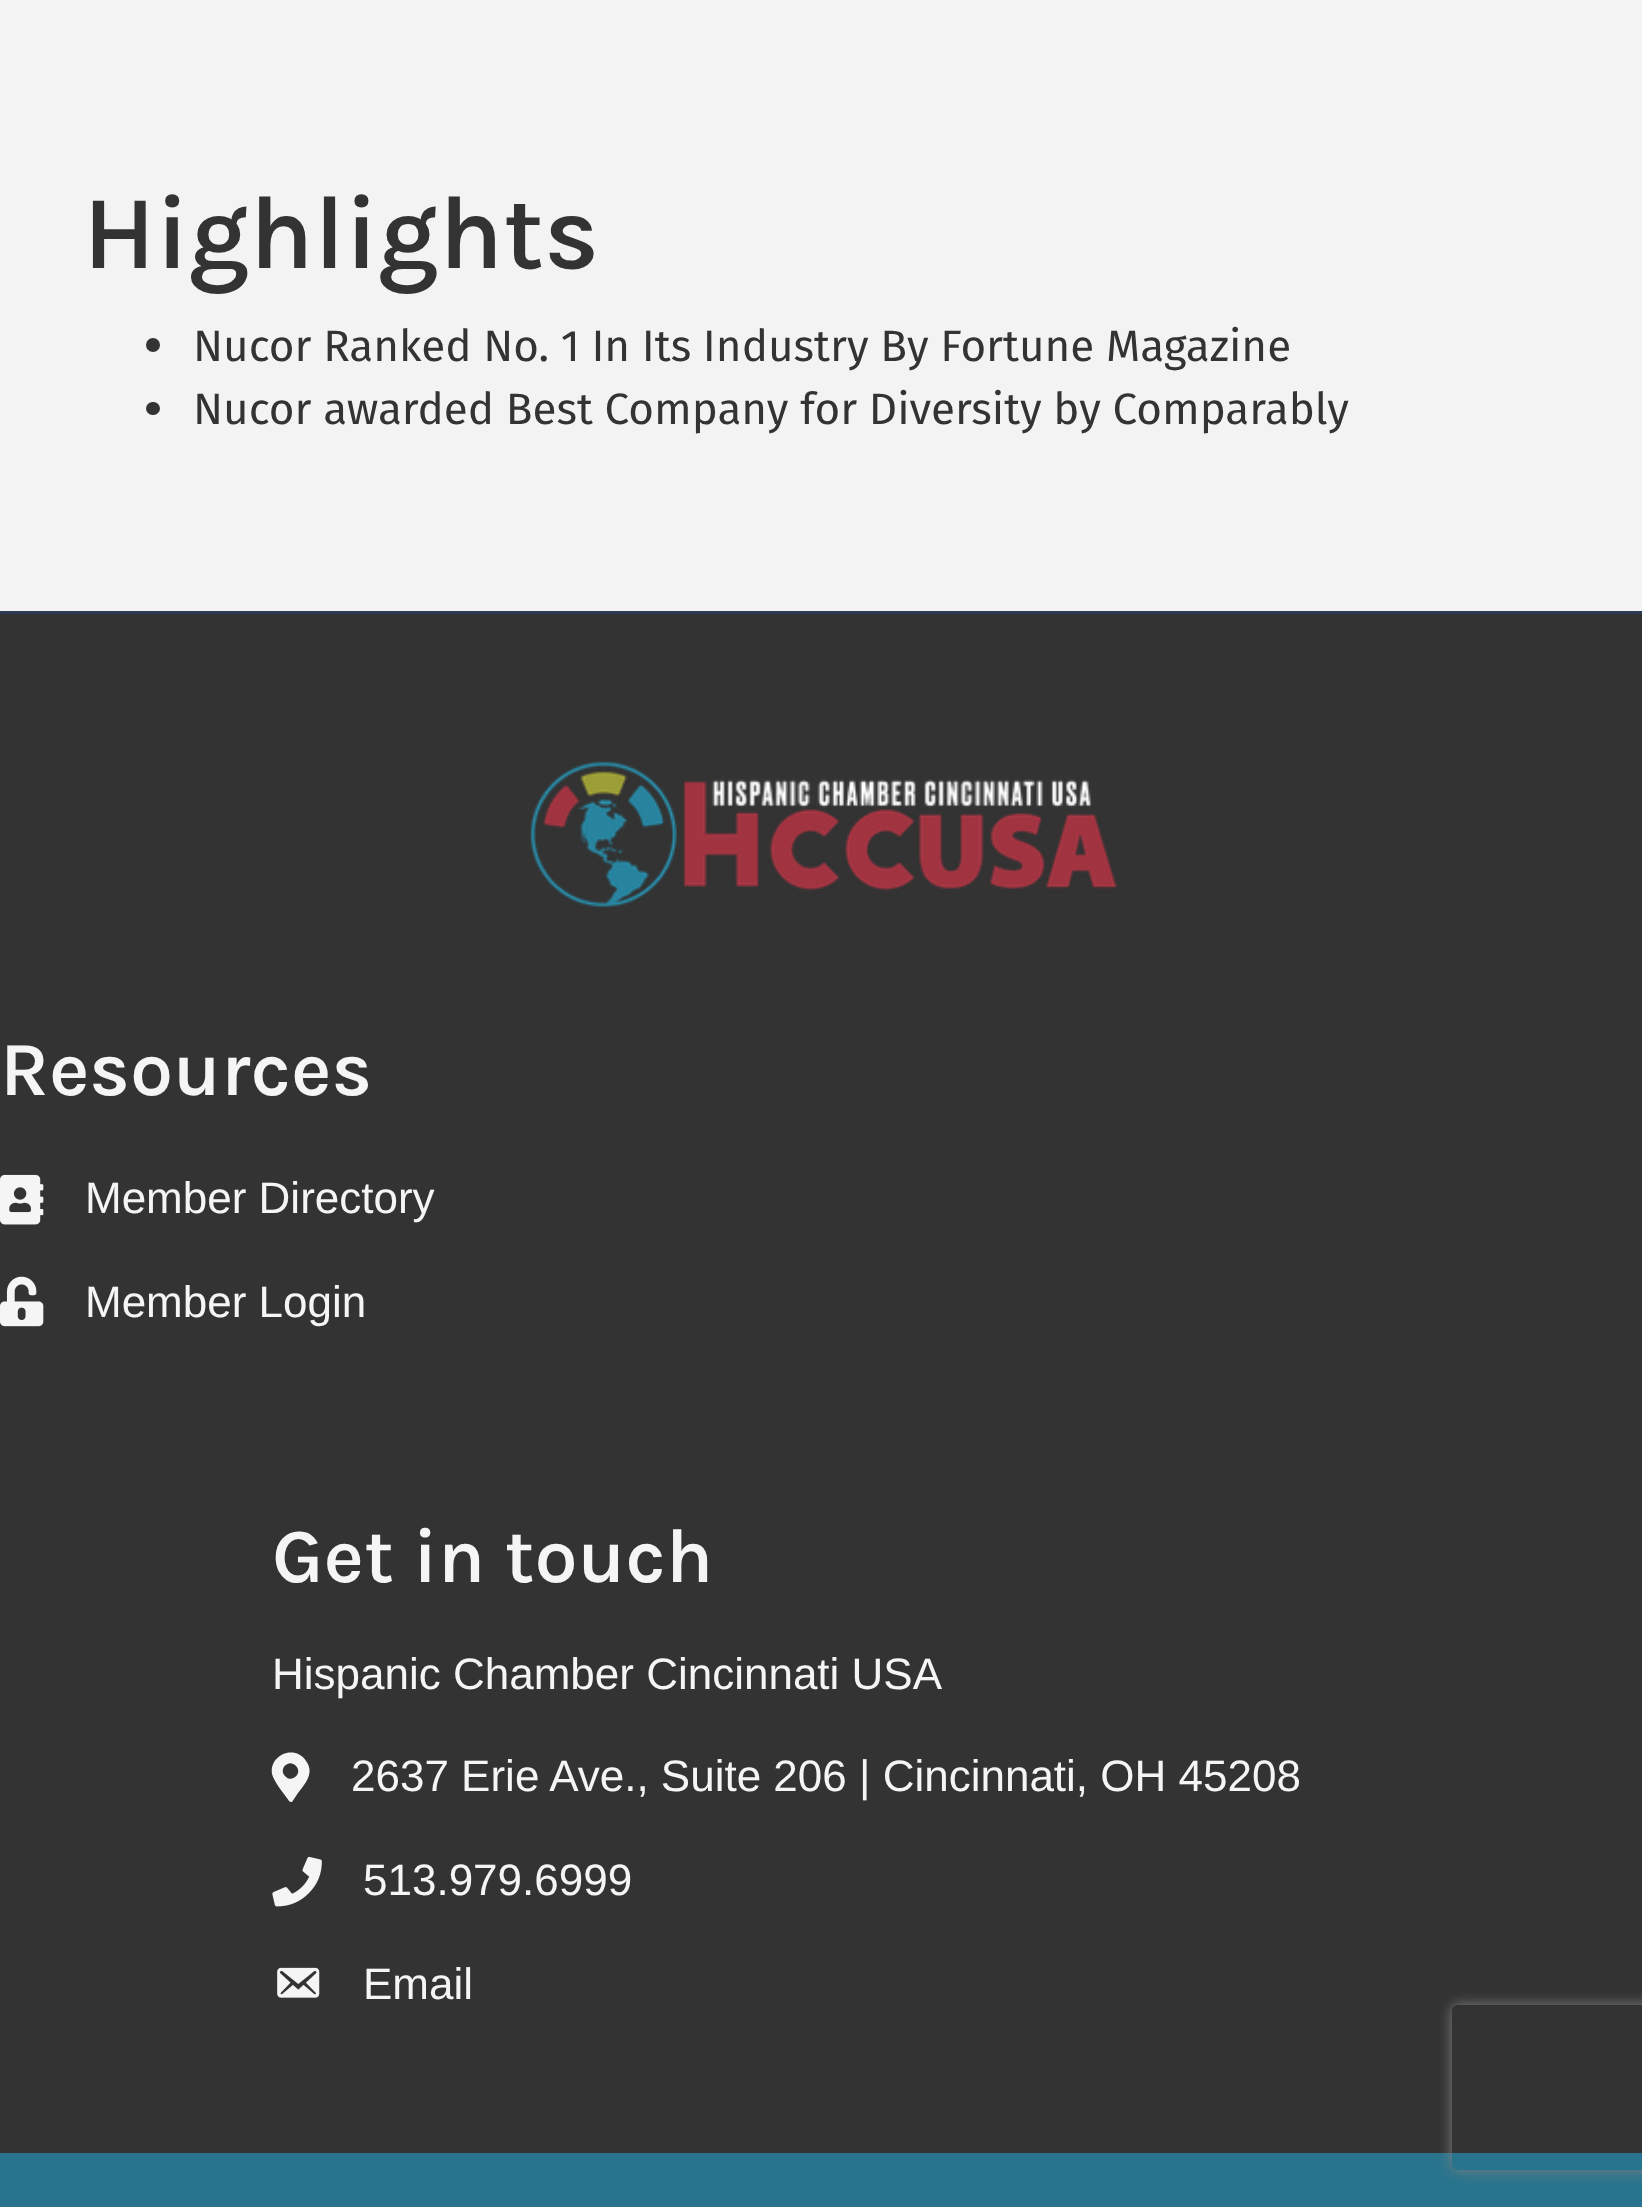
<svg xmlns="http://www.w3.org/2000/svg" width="1642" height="2207">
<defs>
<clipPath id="clip1"><path d="M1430 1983h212v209h-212zm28 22h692c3.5 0 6 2.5 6 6v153c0 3.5-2.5 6-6 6h-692c-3.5 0-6-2.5-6-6v-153c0-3.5 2.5-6 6-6z" clip-rule="evenodd"/></clipPath>
</defs>
<rect width="100%" height="100%" fill="#333"/>
<rect width="1642" height="611" fill="#f3f3f3"/>
<text x="83" y="268" style="font-family:Karla;font-size:104.5px;font-weight:600;fill:#333">Highlights</text>
<circle cx="153" cy="345" r="7" fill="#333"/>
<text x="193" y="361" style="font-family:Fira Sans;font-size:44px;fill:#333">Nucor Ranked No. 1 In Its Industry By Fortune Magazine</text>
<rect x="146" y="402" width="14" height="13" rx="6.5" fill="#333"/>
<text x="193" y="424" style="font-family:Fira Sans;font-size:44px;fill:#333">Nucor awarded Best Company for Diversity by Comparably</text>
<rect y="611" width="1642" height="3" fill="#2c3a56"/>
<image x="530" y="761" width="587" height="147" href="media/1.png"/>
<text x="0" y="1095" style="font-family:Karla;font-size:77px;font-weight:600;fill:#f5f5f5">Resources</text>
<image x="0" y="1174" width="44" height="51" href="media/2.png"/>
<text x="85" y="1213" style="font-family:Liberation Sans;font-size:44px;fill:#f5f5f5">Member Directory</text>
<image x="0" y="1276" width="44" height="51" href="media/3.png"/>
<text x="85" y="1317" style="font-family:Liberation Sans;font-size:44px;fill:#f5f5f5">Member Login</text>
<text x="272" y="1582" style="font-family:Karla;font-size:77px;font-weight:600;fill:#f5f5f5">Get in touch</text>
<text x="272" y="1689" style="font-family:Liberation Sans;font-size:44px;fill:#f5f5f5">Hispanic Chamber Cincinnati USA</text>
<path d="M289 1801c-4-6-15-19-17-27c-3-19 23-30 34-13c9 12-1 23-8 32l-6 9c-1 0-2 0-3-1zm-4-25c7 8 18-3 11-10c-7-8-18 3-11 10z" fill="#f5f5f5"/>
<text x="351" y="1791" style="font-family:Liberation Sans;font-size:44px;fill:#f5f5f5">2637 Erie Ave., Suite 206 | Cincinnati, OH 45208</text>
<image x="272" y="1856" width="50" height="51" href="media/4.png"/>
<text x="363" y="1895" style="font-family:Liberation Sans;font-size:44px;fill:#f5f5f5">513.979.6999</text>
<image x="277" y="1967" width="43" height="31" href="media/5.png"/>
<text x="363" y="1999" style="font-family:Liberation Sans;font-size:44px;fill:#f5f5f5">Email</text>
<rect y="2153" width="1642" height="54" fill="#29748d"/>
<g clip-path="url(#clip1)">
<rect x="1452" y="2005" width="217" height="165" rx="6" fill="#808080" filter="blur(7px)"/>
</g>
</svg>
